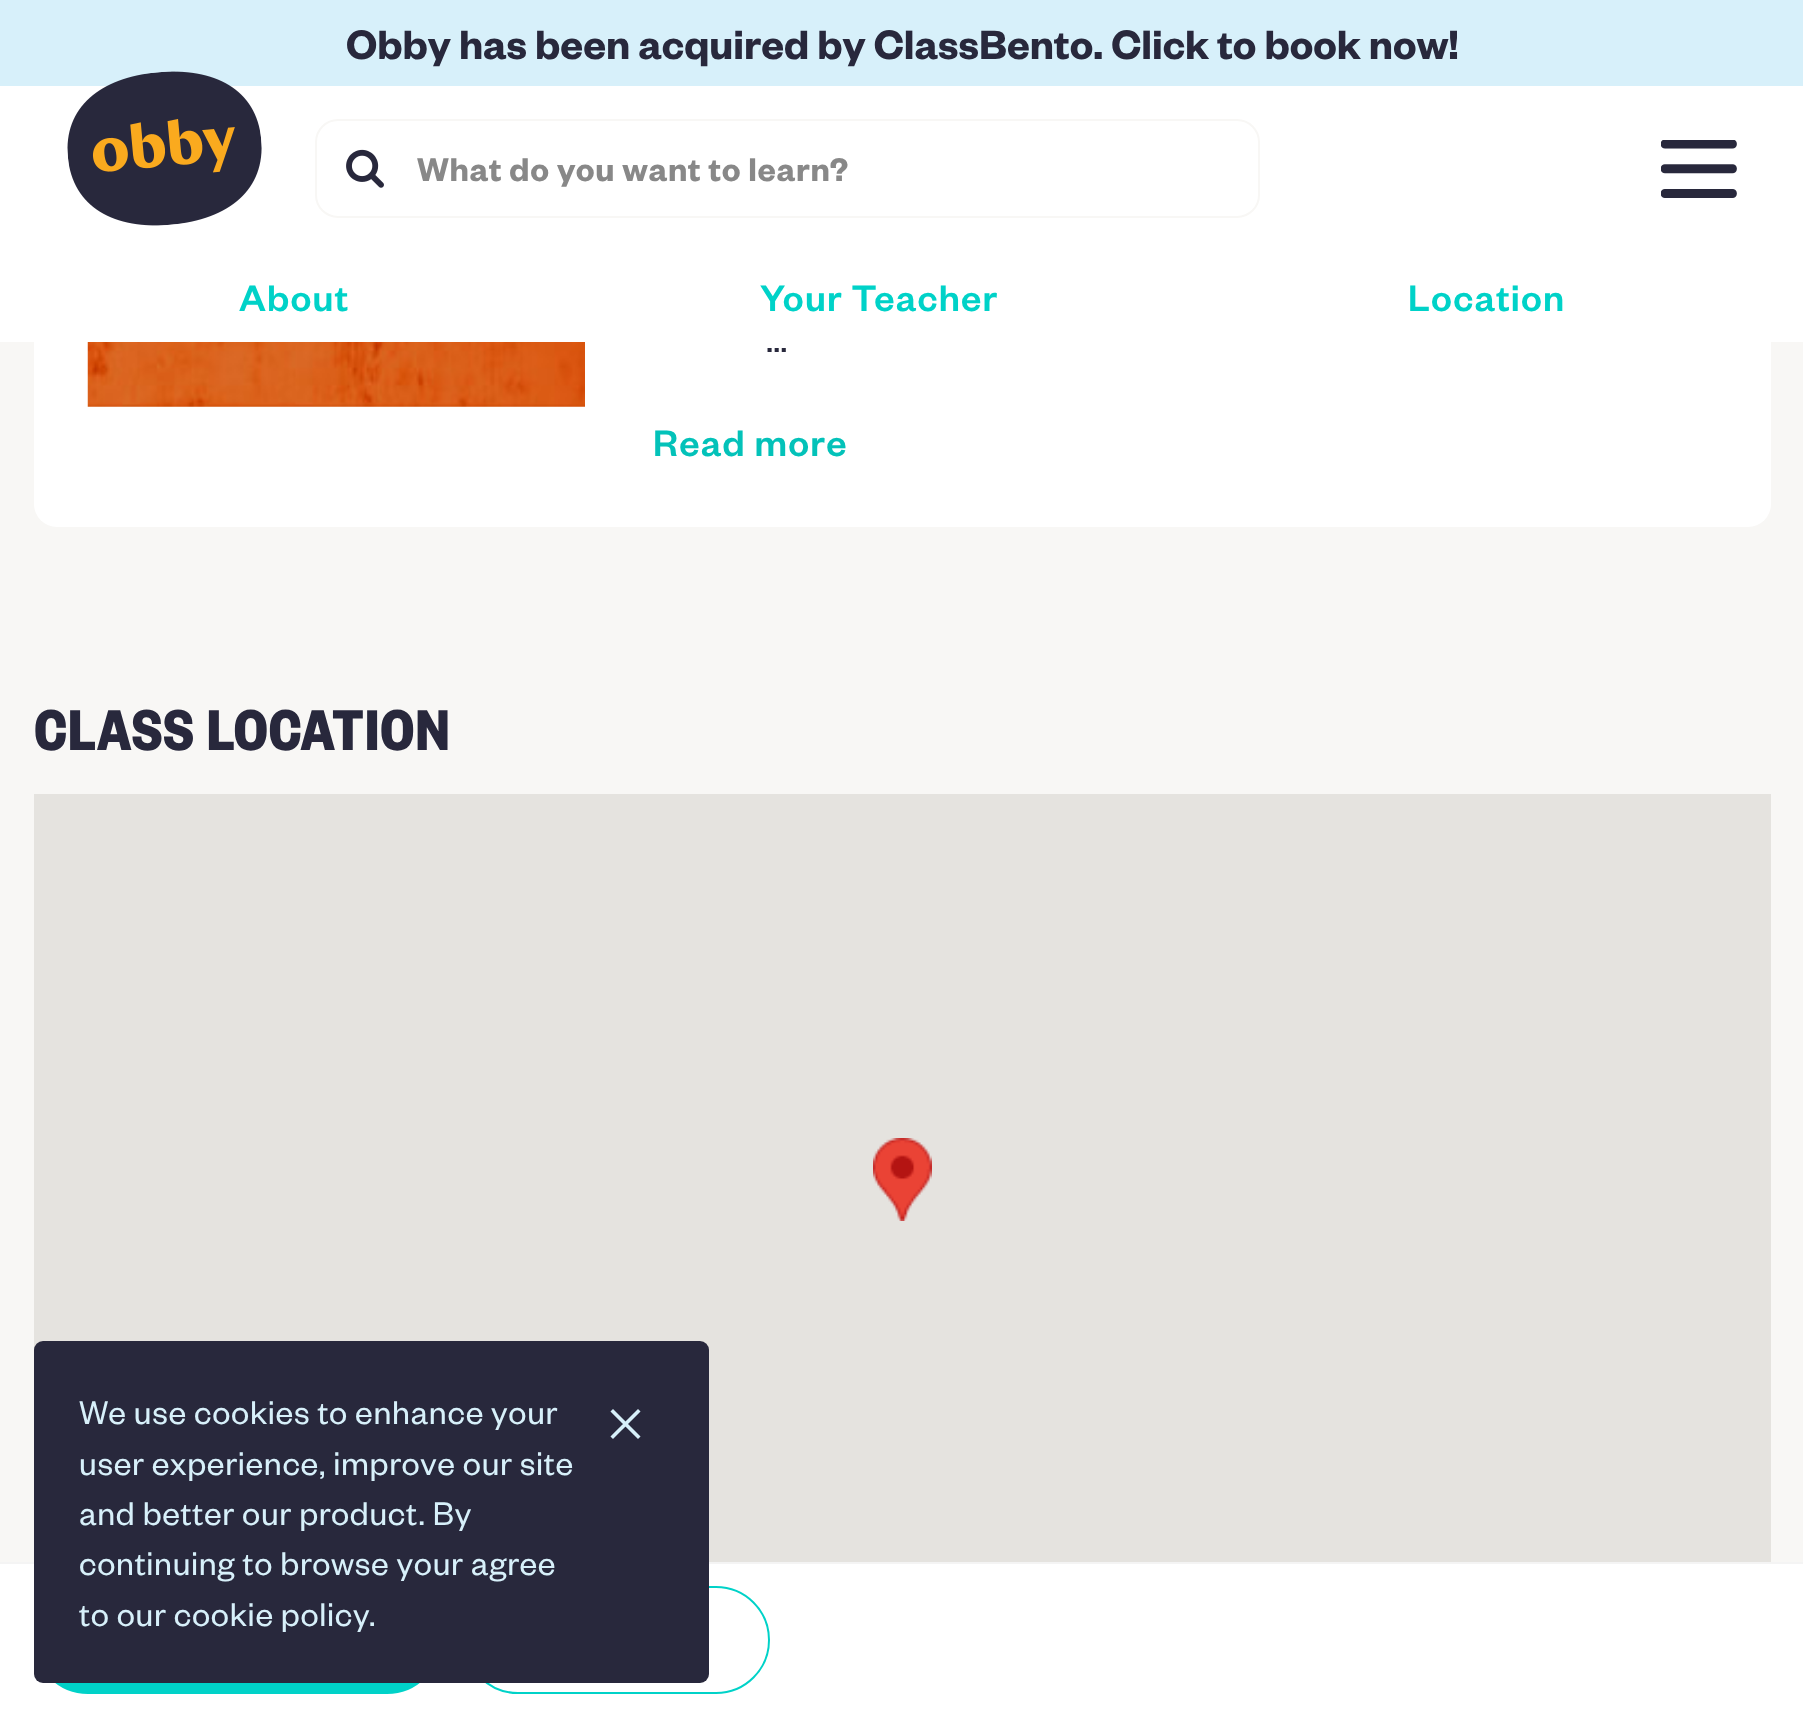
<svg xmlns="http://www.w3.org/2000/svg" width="1803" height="1716">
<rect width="100%" height="100%" fill="#f8f7f5"/>
<rect x="34" y="-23" width="1737" height="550" rx="23" fill="#fff"/>
<rect width="1803" height="86" fill="#d7f0fa"/>
<text x="346" y="59" style="font-family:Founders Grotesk;font-size:45px;font-weight:600;fill:#28283c">Obby has been acquired by ClassBento. Click to book now!</text>
<rect y="86" width="1803" height="256" fill="#fff"/>
<image x="67" y="71" width="195" height="155" href="media/1.png"/>
<rect x="316" y="120" width="943" height="97" rx="22" fill="none" stroke="#f8f7f5" stroke-width="2"/>
<image x="346" y="149" width="38" height="39" href="media/2.png"/>
<text x="417" y="181" style="font-family:Founders Grotesk;font-size:36px;font-weight:600;letter-spacing:0.7px;fill:#888">What do you want to learn?</text>
<image x="1661" y="140" width="76" height="58" href="media/3.png"/>
<text x="239" y="311" style="font-family:Founders Grotesk;font-size:40.5px;font-weight:500;letter-spacing:1.25px;fill:#00d2c8">About</text>
<text x="760" y="311" style="font-family:Founders Grotesk;font-size:40.5px;font-weight:500;letter-spacing:1.25px;fill:#00d2c8">Your Teacher</text>
<text x="1408" y="311" style="font-family:Founders Grotesk;font-size:40.5px;font-weight:500;letter-spacing:1.25px;fill:#00d2c8">Location</text>
<image x="87" y="342" width="498" height="65" href="media/4.png"/>
<text x="766" y="352" style="font-family:Founders Grotesk;font-size:40.5px;fill:#28283c">…</text>
<text x="653" y="456" style="font-family:Founders Grotesk;font-size:40.5px;font-weight:500;letter-spacing:1.25px;fill:#03c2b9">Read more</text>
<text x="34" y="750" style="font-family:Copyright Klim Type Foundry;font-size:63px;font-weight:bold;letter-spacing:0.6px;fill:#28283c">CLASS LOCATION</text>
<rect x="34" y="794" width="1737" height="768" fill="#e5e3df"/>
<image x="873" y="1138" width="59" height="83" href="media/5.png"/>
<rect y="1562" width="1803" height="2" fill="#f4f4f4"/>
<rect y="1564" width="1803" height="152" fill="#fff"/>
<rect x="35" y="1587" width="405" height="106" rx="53" fill="#00d2c8" stroke="#00d2c8" stroke-width="2"/>
<rect x="465" y="1587" width="304" height="106" rx="53" fill="none" stroke="#00d2c8" stroke-width="2"/>
<rect x="34" y="1341" width="675" height="342" rx="9" fill="#28283c"/>
<text x="79" y="1424" style="font-family:Founders Grotesk;font-size:36px;letter-spacing:0.7px;fill:#d7f0fa">We use cookies to enhance your</text>
<text x="79" y="1475" style="font-family:Founders Grotesk;font-size:36px;letter-spacing:0.7px;fill:#d7f0fa">user experience, improve our site</text>
<text x="79" y="1525" style="font-family:Founders Grotesk;font-size:36px;letter-spacing:0.7px;fill:#d7f0fa">and better our product. By</text>
<text x="79" y="1575" style="font-family:Founders Grotesk;font-size:36px;letter-spacing:0.7px;fill:#d7f0fa">continuing to browse your agree</text>
<text x="79" y="1626" style="font-family:Founders Grotesk;font-size:36px;letter-spacing:0.7px;fill:#d7f0fa">to our cookie policy.</text>
<path d="M613 1411.5l25 25m0-25l-25 25" fill="none" stroke="#d7f0fa" stroke-width="3.6" stroke-linecap="square"/>
</svg>
